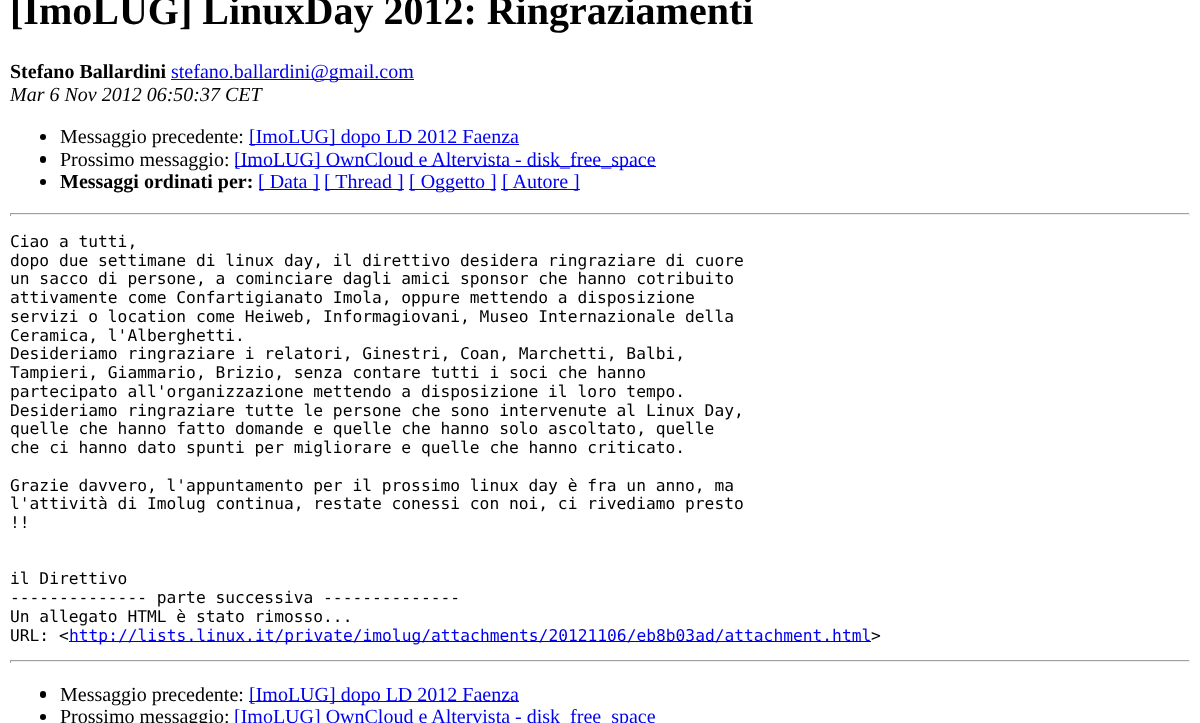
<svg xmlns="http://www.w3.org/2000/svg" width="1200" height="723">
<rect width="100%" height="100%" fill="#fff"/>
<text x="10" y="24" style="font-family:Liberation Serif;font-size:40px;font-weight:bold;fill:#000">[ImoLUG] LinuxDay 2012: Ringraziamenti</text>
<text x="10" y="78" style="font-family:Liberation Serif;font-size:20px;font-weight:bold;fill:#000">Stefano Ballardini</text>
<rect x="171" y="79" width="243" height="1" fill="#00e"/>
<text x="171" y="78" style="font-family:Liberation Serif;font-size:20px;fill:#00e">stefano.ballardini@gmail.com</text>
<text x="10" y="101" style="font-family:Liberation Serif;font-size:20px;font-style:italic;fill:#000">Mar 6 Nov 2012 06:50:37 CET</text>
<circle cx="43" cy="137" r="3" fill="#000"/>
<text x="60" y="143" style="font-family:Liberation Serif;font-size:20px;fill:#000">Messaggio precedente:</text>
<rect x="249" y="144" width="270" height="1" fill="#00e"/>
<text x="249" y="143" style="font-family:Liberation Serif;font-size:20px;fill:#00e">[ImoLUG] dopo LD 2012 Faenza</text>
<rect x="40" y="156" width="6" height="7" rx="3" fill="#000"/>
<text x="60" y="166" style="font-family:Liberation Serif;font-size:20px;fill:#000">Prossimo messaggio:</text>
<rect x="235" y="166" width="421" height="1" fill="#00e"/>
<text x="234" y="166" style="font-family:Liberation Serif;font-size:20px;fill:#00e">[ImoLUG] OwnCloud e Altervista - disk_free_space</text>
<circle cx="43" cy="182" r="3" fill="#000"/>
<text x="60" y="188" style="font-family:Liberation Serif;font-size:20px;font-weight:bold;fill:#000">Messaggi ordinati per:</text>
<rect x="259" y="189" width="61" height="1" fill="#00e"/>
<text x="258" y="188" style="font-family:Liberation Serif;font-size:20px;fill:#00e">[ Data ]</text>
<rect x="325" y="189" width="79" height="1" fill="#00e"/>
<text x="324" y="188" style="font-family:Liberation Serif;font-size:20px;fill:#00e">[ Thread ]</text>
<rect x="409" y="189" width="87" height="1" fill="#00e"/>
<text x="409" y="188" style="font-family:Liberation Serif;font-size:20px;fill:#00e">[ Oggetto ]</text>
<rect x="501" y="189" width="79" height="1" fill="#00e"/>
<text x="502" y="188" style="font-family:Liberation Serif;font-size:20px;fill:#00e">[ Autore ]</text>
<rect x="10" y="213" width="1180" height="1" fill="#9f9f9f"/>
<rect x="1189" y="213" width="1" height="3" fill="#eee"/>
<rect x="10" y="214" width="1180" height="1" fill="#eee"/>
<rect x="10" y="213" width="1" height="3" fill="#9f9f9f"/>
<text x="10" y="247" style="font-family:DejaVu Sans Mono;font-size:16.25px;fill:#000">Ciao a tutti,</text>
<text x="10" y="266" style="font-family:DejaVu Sans Mono;font-size:16.25px;fill:#000">dopo due settimane di linux day, il direttivo desidera ringraziare di cuore</text>
<text x="10" y="284" style="font-family:DejaVu Sans Mono;font-size:16.25px;fill:#000">un sacco di persone, a cominciare dagli amici sponsor che hanno cotribuito</text>
<text x="10" y="303" style="font-family:DejaVu Sans Mono;font-size:16.25px;fill:#000">attivamente come Confartigianato Imola, oppure mettendo a disposizione</text>
<text x="10" y="322" style="font-family:DejaVu Sans Mono;font-size:16.25px;fill:#000">servizi o location come Heiweb, Informagiovani, Museo Internazionale della</text>
<text x="10" y="341" style="font-family:DejaVu Sans Mono;font-size:16.25px;fill:#000">Ceramica, l'Alberghetti.</text>
<text x="10" y="359" style="font-family:DejaVu Sans Mono;font-size:16.25px;fill:#000">Desideriamo ringraziare i relatori, Ginestri, Coan, Marchetti, Balbi,</text>
<text x="10" y="378" style="font-family:DejaVu Sans Mono;font-size:16.25px;fill:#000">Tampieri, Giammario, Brizio, senza contare tutti i soci che hanno</text>
<text x="10" y="397" style="font-family:DejaVu Sans Mono;font-size:16.25px;fill:#000">partecipato all'organizzazione mettendo a disposizione il loro tempo.</text>
<text x="10" y="416" style="font-family:DejaVu Sans Mono;font-size:16.25px;fill:#000">Desideriamo ringraziare tutte le persone che sono intervenute al Linux Day,</text>
<text x="10" y="434" style="font-family:DejaVu Sans Mono;font-size:16.25px;fill:#000">quelle che hanno fatto domande e quelle che hanno solo ascoltato, quelle</text>
<text x="10" y="453" style="font-family:DejaVu Sans Mono;font-size:16.25px;fill:#000">che ci hanno dato spunti per migliorare e quelle che hanno criticato.</text>
<text x="10" y="491" style="font-family:DejaVu Sans Mono;font-size:16.25px;fill:#000">Grazie davvero, l'appuntamento per il prossimo linux day è fra un anno, ma</text>
<text x="10" y="509" style="font-family:DejaVu Sans Mono;font-size:16.25px;fill:#000">l'attività di Imolug continua, restate conessi con noi, ci rivediamo presto</text>
<text x="10" y="528" style="font-family:DejaVu Sans Mono;font-size:16.25px;fill:#000">!!</text>
<text x="10" y="584" style="font-family:DejaVu Sans Mono;font-size:16.25px;fill:#000">il Direttivo</text>
<text x="10" y="603" style="font-family:DejaVu Sans Mono;font-size:16.25px;fill:#000">-------------- parte successiva --------------</text>
<text x="10" y="622" style="font-family:DejaVu Sans Mono;font-size:16.25px;fill:#000">Un allegato HTML è stato rimosso...</text>
<text x="10" y="641" style="font-family:DejaVu Sans Mono;font-size:16.25px;fill:#000">URL: &lt;</text>
<rect x="69" y="641" width="802" height="1" fill="#00e"/>
<text x="69" y="641" style="font-family:DejaVu Sans Mono;font-size:16.25px;fill:#00e">http://lists.linux.it/private/imolug/attachments/20121106/eb8b03ad/attachment.html</text>
<text x="871" y="641" style="font-family:DejaVu Sans Mono;font-size:16.25px;fill:#000">&gt;</text>
<rect x="10" y="660" width="1180" height="1" fill="#9f9f9f"/>
<rect x="1189" y="660" width="1" height="3" fill="#eee"/>
<rect x="10" y="661" width="1180" height="1" fill="#eee"/>
<rect x="10" y="660" width="1" height="3" fill="#9f9f9f"/>
<rect x="40" y="691" width="6" height="7" rx="3" fill="#000"/>
<text x="60" y="701" style="font-family:Liberation Serif;font-size:20px;fill:#000">Messaggio precedente:</text>
<rect x="249" y="701" width="270" height="1" fill="#00e"/>
<text x="249" y="701" style="font-family:Liberation Serif;font-size:20px;fill:#00e">[ImoLUG] dopo LD 2012 Faenza</text>
<circle cx="43" cy="717" r="3" fill="#000"/>
<text x="60" y="723" style="font-family:Liberation Serif;font-size:20px;fill:#000">Prossimo messaggio:</text>
<text x="234" y="723" style="font-family:Liberation Serif;font-size:20px;fill:#00e">[ImoLUG] OwnCloud e Altervista - disk_free_space</text>
</svg>
